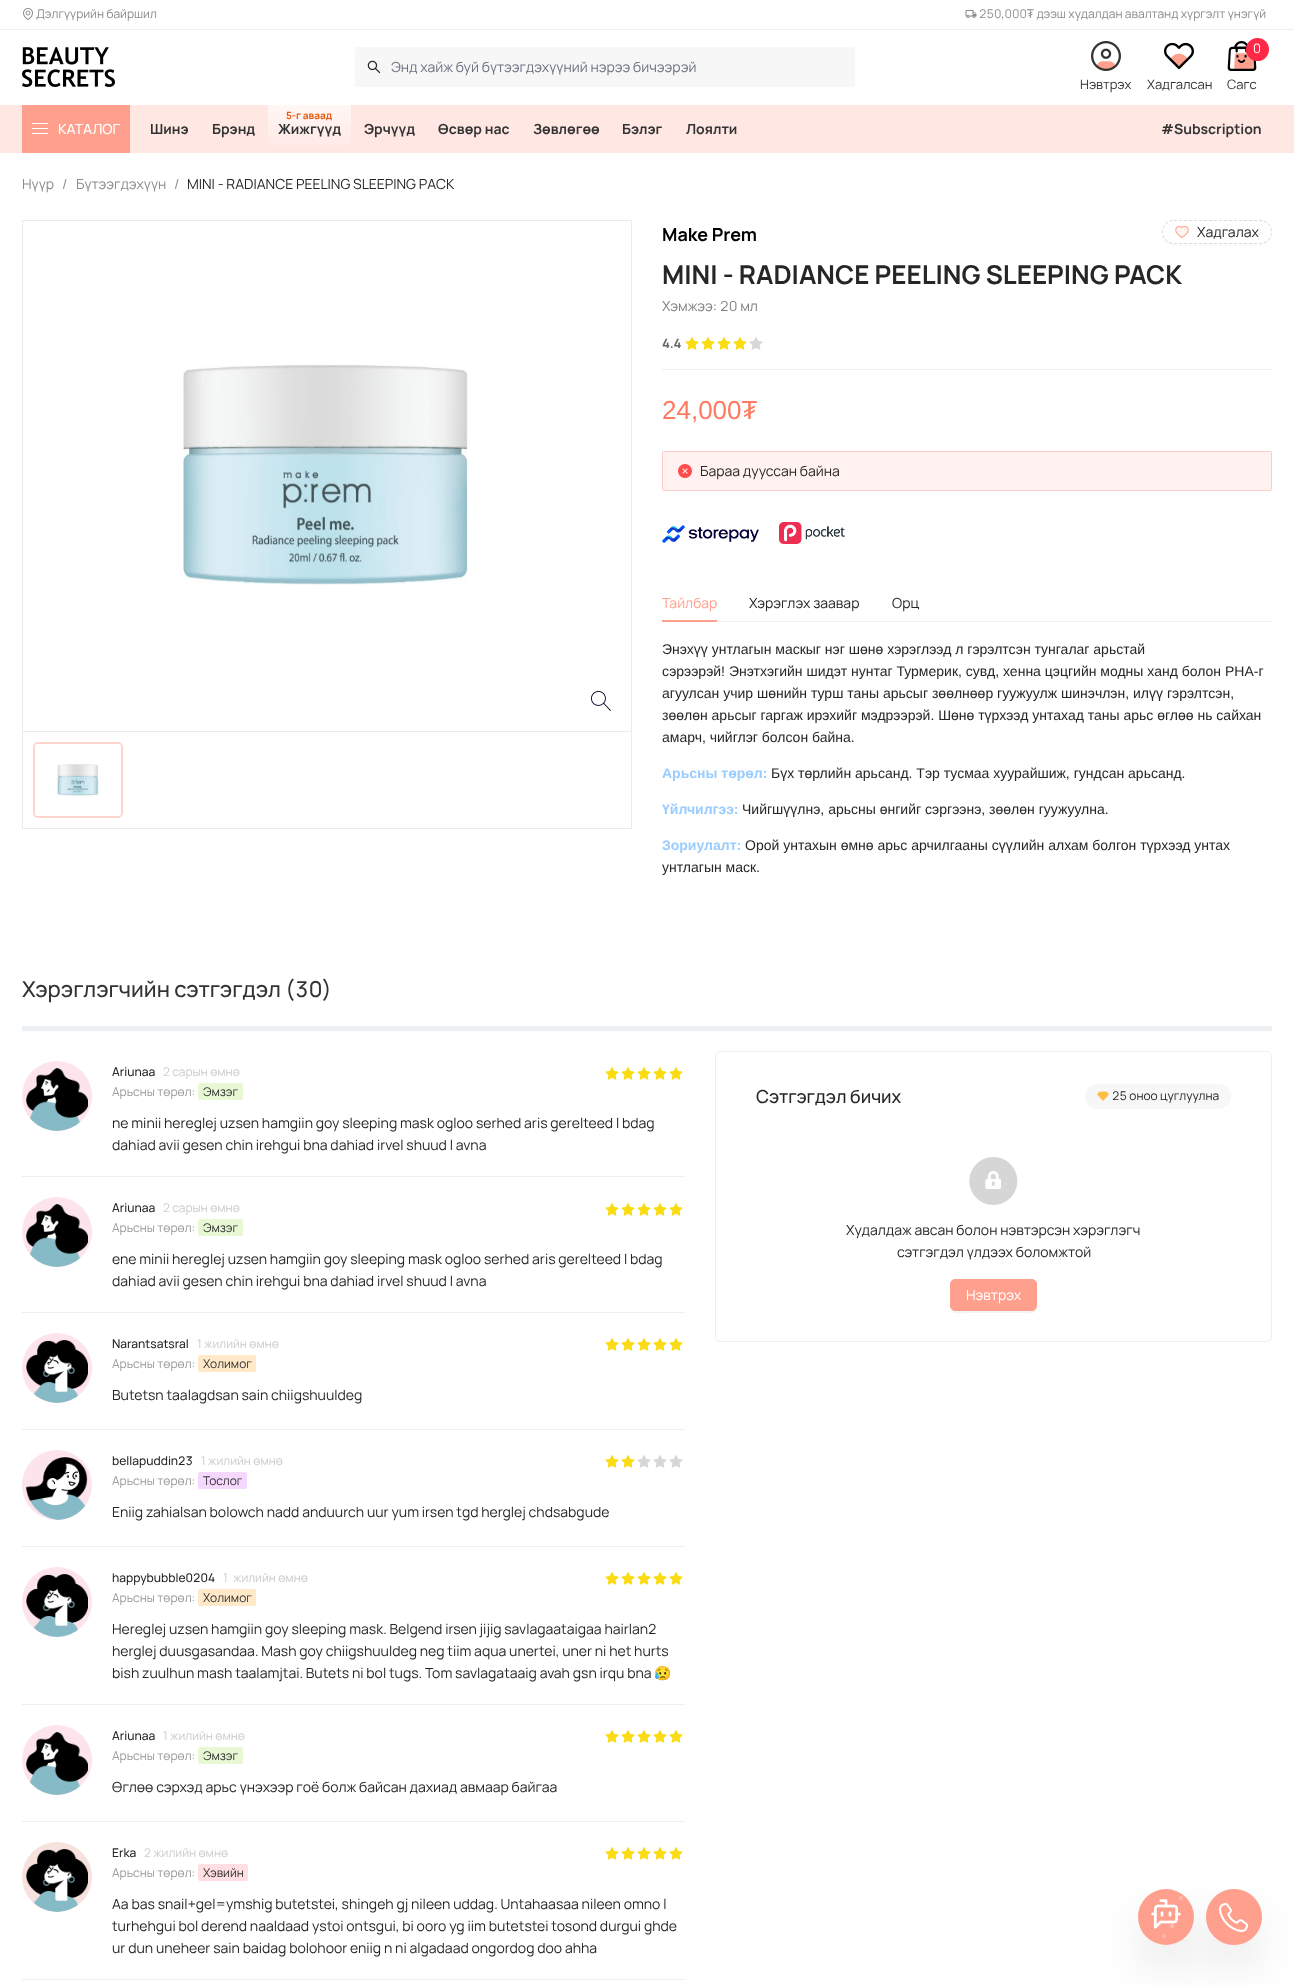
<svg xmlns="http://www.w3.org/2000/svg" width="1294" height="1985">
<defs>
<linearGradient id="g1" gradientUnits="userSpaceOnUse" x1="310" y1="153" x2="310" y2="105"><stop offset="0" stop-color="#ffe7e3"/><stop offset="1" stop-color="#fff7f5"/></linearGradient>
</defs>
<rect width="100%" height="100%" fill="#fff"/>
<rect y="29" width="1294" height="1" fill="#efefef"/>
<image x="23" y="8" width="10" height="12" href="media/1.png"/>
<text x="36" y="18" style="font-family:Manrope;font-size:12px;fill:#8c8c8c">Дэлгүүрийн байршил</text>
<image x="965" y="10" width="12" height="8" href="media/2.png"/>
<text x="979" y="18" style="font-family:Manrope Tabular;font-size:12px;fill:#8c8c8c">250,000₮ дээш худалдан авалтанд хүргэлт үнэгүй</text>
<image x="22" y="47" width="93" height="40" href="media/3.png"/>
<rect x="355" y="47" width="500" height="40" rx="2" fill="#f7f7f7"/>
<image x="367" y="60" width="14" height="14" href="media/4.png"/>
<text x="391" y="72" style="font-family:Manrope;font-size:14px;fill:#6b7280">Энд хайж буй бүтээгдэхүүний нэрээ бичээрэй</text>
<image x="1091" y="41" width="30" height="30" href="media/5.png"/>
<text x="1080" y="89" style="font-family:Manrope;font-size:13px;fill:#333">Нэвтрэх</text>
<image x="1164" y="42" width="30" height="28" href="media/6.png"/>
<text x="1147" y="89" style="font-family:Manrope;font-size:13px;fill:#333">Хадгалсан</text>
<image x="1227" y="41" width="30" height="30" href="media/7.png"/>
<circle cx="1257.5" cy="49.5" r="11.5" fill="#ff2846"/>
<text x="1253" y="53" style="font-family:Manrope;font-size:13px;letter-spacing:-1px;fill:#fff">0</text>
<text x="1227" y="89" style="font-family:Manrope;font-size:13px;fill:#333">Сагс</text>
<rect y="105" width="1294" height="48" fill="#ffe7e3"/>
<rect x="22" y="105" width="108" height="48" fill="#ffa08e"/>
<rect x="32" y="123" width="16" height="1" fill="#fff"/>
<rect x="32" y="128" width="16" height="1" fill="#fff"/>
<rect x="32" y="133" width="16" height="1" fill="#fff"/>
<text x="58" y="134" style="font-family:Manrope;font-size:14px;font-weight:500;fill:#fff">КАТАЛОГ</text>
<text x="150" y="134" style="font-family:Manrope;font-size:14px;font-weight:bold;fill:#333">Шинэ</text>
<text x="212" y="134" style="font-family:Manrope;font-size:14px;font-weight:bold;fill:#333">Брэнд</text>
<rect x="268" y="105" width="83" height="41" fill="url(#g1)"/>
<text x="286" y="119" style="font-family:Manrope;font-size:10px;font-weight:bold;fill:#ea580c">5-г аваад</text>
<text x="278" y="134" style="font-family:Manrope;font-size:14px;font-weight:bold;fill:#333">Жижгүүд</text>
<text x="364" y="134" style="font-family:Manrope;font-size:14px;font-weight:bold;fill:#333">Эрчүүд</text>
<text x="438" y="134" style="font-family:Manrope;font-size:14px;font-weight:bold;fill:#333">Өсвөр нас</text>
<text x="533" y="134" style="font-family:Manrope;font-size:14px;font-weight:bold;fill:#333">Зөвлөгөө</text>
<text x="622" y="134" style="font-family:Manrope;font-size:14px;font-weight:bold;fill:#333">Бэлэг</text>
<text x="686" y="134" style="font-family:Manrope;font-size:14px;font-weight:bold;fill:#333">Лоялти</text>
<text x="1161" y="134" style="font-family:Manrope;font-size:14px;font-weight:bold;fill:#333">#Subscription</text>
<text x="22" y="189" style="font-family:Manrope;font-size:14px;fill:#8c8c8c">Нүүр</text>
<text x="62" y="189" style="font-family:Manrope;font-size:14px;fill:#8c8c8c">/</text>
<text x="76" y="189" style="font-family:Manrope;font-size:14px;fill:#8c8c8c">Бүтээгдэхүүн</text>
<text x="174" y="189" style="font-family:Manrope;font-size:14px;fill:#8c8c8c">/</text>
<text x="187" y="189" style="font-family:Manrope;font-size:14px;fill:#262626">MINI - RADIANCE PEELING SLEEPING PACK</text>
<rect x="22.5" y="220.5" width="609" height="608" fill="none" stroke="#e7ecf0"/>
<image x="183" y="365" width="285" height="220" href="media/8.png"/>
<image x="591" y="691" width="20" height="20" href="media/9.png"/>
<rect x="23" y="731" width="608" height="1" fill="#e7ecf0"/>
<rect x="34" y="743" width="88" height="74" rx="4" fill="none" stroke="#ffd4cc" stroke-width="2"/>
<image x="35" y="744" width="86" height="72" href="media/10.png"/>
<text x="662" y="241" style="font-family:Manrope;font-size:18px;font-weight:bold;fill:#000">Make Prem</text>
<path d="M1162 233v1c0 7 5 12 12 12h86c7 0 12-5 12-12v-1c-1 6-6 11-12 11h-86c-6 0-11-5-12-11z" fill="#fbfbfb"/>
<path d="M1174 220.5h86c6.5 0 11.5 5 11.5 11.5c0 6.5-5 11.5-11.5 11.5h-86c-6.5 0-11.5-5-11.5-11.5c0-6.5 5-11.5 11.5-11.5z" fill="none" stroke="#d9d9d9" stroke-dasharray="3 2"/>
<image x="1175" y="226" width="14" height="12" href="media/11.png"/>
<text x="1197" y="237" style="font-family:Manrope;font-size:14px;fill:#262626">Хадгалах</text>
<text x="662" y="284" style="font-family:Manrope;font-size:26px;font-weight:bold;fill:#262626">MINI - RADIANCE PEELING SLEEPING PACK</text>
<text x="662" y="311" style="font-family:Manrope;font-size:14px;fill:#818181">Хэмжээ:</text>
<text x="720" y="311" style="font-family:Manrope Tabular;font-size:14px;fill:#818181">20 мл</text>
<rect x="662" y="369" width="610" height="1" fill="#f0f0f0"/>
<text x="662" y="348" style="font-family:Manrope;font-size:13px;font-weight:bold;fill:#666">4.4</text>
<image x="685" y="337" width="14" height="13" href="media/12.png"/>
<image x="701" y="337" width="14" height="13" href="media/12.png"/>
<image x="717" y="337" width="14" height="13" href="media/12.png"/>
<image x="733" y="337" width="14" height="13" href="media/12.png"/>
<image x="749" y="337" width="14" height="13" href="media/13.png"/>
<text x="662" y="419" style="font-family:Liberation Sans;font-size:26px;fill:#ff7961">24,000₮</text>
<rect x="662.5" y="451.5" width="609" height="39" rx="1.5" fill="#fff2f0" stroke="#ffccc7"/>
<image x="678" y="464" width="14" height="14" href="media/14.png"/>
<text x="700" y="476" style="font-family:Manrope;font-size:14px;fill:#262626">Бараа дууссан байна</text>
<image x="662" y="525" width="97" height="18" href="media/15.png"/>
<image x="779" y="522" width="66" height="22" href="media/16.png"/>
<text x="662" y="608" style="font-family:Manrope;font-size:14px;fill:#ffa08e">Тайлбар</text>
<text x="749" y="608" style="font-family:Manrope;font-size:14px;fill:#262626">Хэрэглэх заавар</text>
<text x="892" y="608" style="font-family:Manrope;font-size:14px;fill:#262626">Орц</text>
<rect x="662" y="620" width="55" height="2" fill="#ffa08e"/>
<rect x="717" y="621" width="555" height="1" fill="#f0f0f0"/>
<text x="662" y="654" style="font-family:Liberation Sans;font-size:14px;fill:#262626">Энэхүү унтлагын маскыг нэг шөнө хэрэглээд л гэрэлтсэн тунгалаг арьстай</text>
<text x="662" y="676" style="font-family:Liberation Sans;font-size:14px;fill:#262626">сэрээрэй! Энэтхэгийн шидэт нунтаг Турмерик, сувд, хенна цэцгийн модны ханд болон PHA-г</text>
<text x="662" y="698" style="font-family:Liberation Sans;font-size:14px;fill:#262626">агуулсан учир шөнийн турш таны арьсыг зөөлнөөр гуужуулж шинэчлэн, илүү гэрэлтсэн,</text>
<text x="662" y="720" style="font-family:Liberation Sans;font-size:14px;fill:#262626">зөөлөн арьсыг гаргаж ирэхийг мэдрээрэй. Шөнө түрхээд унтахад таны арьс өглөө нь сайхан</text>
<text x="662" y="742" style="font-family:Liberation Sans;font-size:14px;fill:#262626">амарч, чийглэг болсон байна.</text>
<text x="662" y="778" style="font-family:Liberation Sans;font-size:14px;font-weight:bold;fill:#9cf">Арьсны төрөл:</text>
<text x="771" y="778" style="font-family:Liberation Sans;font-size:14px;fill:#262626">Бүх төрлийн арьсанд. Тэр тусмаа хуурайшиж, гундсан арьсанд.</text>
<text x="662" y="814" style="font-family:Liberation Sans;font-size:14px;font-weight:bold;fill:#9cf">Үйлчилгээ:</text>
<text x="742" y="814" style="font-family:Liberation Sans;font-size:14px;fill:#262626">Чийгшүүлнэ, арьсны өнгийг сэргээнэ, зөөлөн гуужуулна.</text>
<text x="662" y="850" style="font-family:Liberation Sans;font-size:14px;font-weight:bold;fill:#9cf">Зориулалт:</text>
<text x="745" y="850" style="font-family:Liberation Sans;font-size:14px;fill:#262626">Орой унтахын өмнө арьс арчилгааны сүүлийн алхам болгон түрхээд унтах</text>
<text x="662" y="872" style="font-family:Liberation Sans;font-size:14px;fill:#262626">унтлагын маск.</text>
<rect x="22" y="1026" width="1250" height="5" fill="#ebeff2"/>
<text x="22" y="997" style="font-family:Manrope;font-size:22px;font-weight:500;fill:#333">Хэрэглэгчийн сэтгэгдэл (</text>
<text x="295" y="997" style="font-family:Manrope Tabular;font-size:22px;font-weight:500;fill:#333">30</text>
<text x="322" y="997" style="font-family:Manrope;font-size:22px;font-weight:500;fill:#333">)</text>
<rect x="22" y="1176" width="663" height="1" fill="#ebeff2"/>
<circle cx="57" cy="1096" r="35" fill="#fde3ec"/>
<image x="26" y="1068" width="62" height="63" href="media/17.png"/>
<text x="112" y="1076" style="font-family:Manrope;font-size:12px;font-weight:500;fill:#262626">Ariunaa</text>
<text x="163" y="1076" style="font-family:Manrope;font-size:12px;fill:#ccc">2 сарын өмнө</text>
<image x="605" y="1067" width="14" height="13" href="media/12.png"/>
<image x="621" y="1067" width="14" height="13" href="media/12.png"/>
<image x="637" y="1067" width="14" height="13" href="media/12.png"/>
<image x="653" y="1067" width="14" height="13" href="media/12.png"/>
<image x="669" y="1067" width="14" height="13" href="media/12.png"/>
<text x="112" y="1096" style="font-family:Manrope;font-size:12px;fill:#9b9b9b">Арьсны төрөл:</text>
<rect x="198" y="1083" width="45" height="17" rx="2" fill="#e8f8d4"/>
<text x="203" y="1096" style="font-family:Manrope;font-size:12px;fill:#333">Эмзэг</text>
<text x="112" y="1128" style="font-family:Manrope;font-size:14px;fill:#262626">ne minii hereglej uzsen hamgiin goy sleeping mask ogloo serhed aris gerelteed l bdag</text>
<text x="112" y="1150" style="font-family:Manrope;font-size:14px;fill:#262626">dahiad avii gesen chin irehgui bna dahiad irvel shuud l avna</text>
<rect x="22" y="1312" width="663" height="1" fill="#ebeff2"/>
<circle cx="57" cy="1232" r="35" fill="#fde3ec"/>
<image x="26" y="1204" width="62" height="63" href="media/18.png"/>
<text x="112" y="1212" style="font-family:Manrope;font-size:12px;font-weight:500;fill:#262626">Ariunaa</text>
<text x="163" y="1212" style="font-family:Manrope;font-size:12px;fill:#ccc">2 сарын өмнө</text>
<image x="605" y="1203" width="14" height="13" href="media/12.png"/>
<image x="621" y="1203" width="14" height="13" href="media/12.png"/>
<image x="637" y="1203" width="14" height="13" href="media/12.png"/>
<image x="653" y="1203" width="14" height="13" href="media/12.png"/>
<image x="669" y="1203" width="14" height="13" href="media/12.png"/>
<text x="112" y="1232" style="font-family:Manrope;font-size:12px;fill:#9b9b9b">Арьсны төрөл:</text>
<rect x="198" y="1219" width="45" height="17" rx="2" fill="#e8f8d4"/>
<text x="203" y="1232" style="font-family:Manrope;font-size:12px;fill:#333">Эмзэг</text>
<text x="112" y="1264" style="font-family:Manrope;font-size:14px;fill:#262626">ene minii hereglej uzsen hamgiin goy sleeping mask ogloo serhed aris gerelteed l bdag</text>
<text x="112" y="1286" style="font-family:Manrope;font-size:14px;fill:#262626">dahiad avii gesen chin irehgui bna dahiad irvel shuud l avna</text>
<rect x="22" y="1429" width="663" height="1" fill="#ebeff2"/>
<circle cx="57" cy="1368" r="35" fill="#fde3ec"/>
<image x="26" y="1340" width="62" height="63" href="media/19.png"/>
<text x="112" y="1348" style="font-family:Manrope;font-size:12px;font-weight:500;fill:#262626">Narantsatsral</text>
<text x="197" y="1348" style="font-family:Manrope;font-size:12px;fill:#ccc">1 жилийн өмнө</text>
<image x="605" y="1338" width="14" height="13" href="media/12.png"/>
<image x="621" y="1338" width="14" height="13" href="media/12.png"/>
<image x="637" y="1338" width="14" height="13" href="media/12.png"/>
<image x="653" y="1338" width="14" height="13" href="media/12.png"/>
<image x="669" y="1338" width="14" height="13" href="media/12.png"/>
<text x="112" y="1368" style="font-family:Manrope;font-size:12px;fill:#9b9b9b">Арьсны төрөл:</text>
<rect x="198" y="1355" width="58" height="17" rx="2" fill="#ffe9c9"/>
<text x="203" y="1368" style="font-family:Manrope;font-size:12px;fill:#333">Холимог</text>
<text x="112" y="1400" style="font-family:Manrope;font-size:14px;fill:#262626">Butetsn taalagdsan sain chiigshuuldeg</text>
<rect x="22" y="1546" width="663" height="1" fill="#ebeff2"/>
<circle cx="57" cy="1485" r="35" fill="#fde3ec"/>
<image x="26" y="1457" width="62" height="63" href="media/20.png"/>
<text x="112" y="1465" style="font-family:Manrope Tabular;font-size:12px;font-weight:500;fill:#262626">bellapuddin23</text>
<text x="201" y="1465" style="font-family:Manrope;font-size:12px;fill:#ccc">1 жилийн өмнө</text>
<image x="605" y="1455" width="14" height="13" href="media/12.png"/>
<image x="621" y="1455" width="14" height="13" href="media/12.png"/>
<image x="637" y="1455" width="14" height="13" href="media/13.png"/>
<image x="653" y="1455" width="14" height="13" href="media/13.png"/>
<image x="669" y="1455" width="14" height="13" href="media/13.png"/>
<text x="112" y="1485" style="font-family:Manrope;font-size:12px;fill:#9b9b9b">Арьсны төрөл:</text>
<rect x="198" y="1472" width="49" height="17" rx="2" fill="#f6d8ff"/>
<text x="203" y="1485" style="font-family:Manrope;font-size:12px;fill:#333">Тослог</text>
<text x="112" y="1517" style="font-family:Manrope;font-size:14px;fill:#262626">Eniig zahialsan bolowch nadd anduurch uur yum irsen tgd herglej chdsabgude</text>
<rect x="22" y="1704" width="663" height="1" fill="#ebeff2"/>
<circle cx="57" cy="1602" r="35" fill="#fde3ec"/>
<image x="26" y="1574" width="62" height="63" href="media/21.png"/>
<text x="112" y="1582" style="font-family:Manrope Tabular;font-size:12px;font-weight:500;fill:#262626">happybubble0204</text>
<text x="223" y="1582" style="font-family:Manrope;font-size:12px;fill:#ccc">1</text>
<text x="233" y="1582" style="font-family:Manrope;font-size:12px;fill:#ccc">жилийн өмнө</text>
<image x="605" y="1572" width="14" height="13" href="media/12.png"/>
<image x="621" y="1572" width="14" height="13" href="media/12.png"/>
<image x="637" y="1572" width="14" height="13" href="media/12.png"/>
<image x="653" y="1572" width="14" height="13" href="media/12.png"/>
<image x="669" y="1572" width="14" height="13" href="media/12.png"/>
<text x="112" y="1602" style="font-family:Manrope;font-size:12px;fill:#9b9b9b">Арьсны төрөл:</text>
<rect x="198" y="1589" width="58" height="17" rx="2" fill="#ffe9c9"/>
<text x="203" y="1602" style="font-family:Manrope;font-size:12px;fill:#333">Холимог</text>
<text x="112" y="1634" style="font-family:Manrope;font-size:14px;fill:#262626">Hereglej uzsen hamgiin goy sleeping mask. Belgend irsen jijig savlagaataigaa hairlan2</text>
<text x="112" y="1656" style="font-family:Manrope;font-size:14px;fill:#262626">herglej duusgasandaa. Mash goy chiigshuuldeg neg tiim aqua unertei, uner ni het hurts</text>
<text x="112" y="1678" style="font-family:Manrope;font-size:14px;fill:#262626">bish zuulhun mash taalamjtai. Butets ni bol tugs. Tom savlagataaig avah gsn irqu bna</text>
<text x="654" y="1678" style="font-family:Noto Color Emoji;font-size:14px;fill:#262626">😥</text>
<rect x="22" y="1821" width="663" height="1" fill="#ebeff2"/>
<circle cx="57" cy="1760" r="35" fill="#fde3ec"/>
<image x="26" y="1732" width="62" height="63" href="media/22.png"/>
<text x="112" y="1740" style="font-family:Manrope;font-size:12px;font-weight:500;fill:#262626">Ariunaa</text>
<text x="163" y="1740" style="font-family:Manrope;font-size:12px;fill:#ccc">1 жилийн өмнө</text>
<image x="605" y="1730" width="14" height="13" href="media/12.png"/>
<image x="621" y="1730" width="14" height="13" href="media/12.png"/>
<image x="637" y="1730" width="14" height="13" href="media/12.png"/>
<image x="653" y="1730" width="14" height="13" href="media/12.png"/>
<image x="669" y="1730" width="14" height="13" href="media/12.png"/>
<text x="112" y="1760" style="font-family:Manrope;font-size:12px;fill:#9b9b9b">Арьсны төрөл:</text>
<rect x="198" y="1747" width="45" height="17" rx="2" fill="#e8f8d4"/>
<text x="203" y="1760" style="font-family:Manrope;font-size:12px;fill:#333">Эмзэг</text>
<text x="112" y="1792" style="font-family:Manrope;font-size:14px;fill:#262626">Өглөө сэрхэд арьс үнэхээр гоё болж байсан дахиад авмаар байгаа</text>
<rect x="22" y="1979" width="663" height="1" fill="#ebeff2"/>
<circle cx="57" cy="1877" r="35" fill="#f6e1dc"/>
<image x="26" y="1849" width="62" height="63" href="media/23.png"/>
<text x="112" y="1857" style="font-family:Manrope;font-size:12px;font-weight:500;fill:#262626">Erka</text>
<text x="144" y="1857" style="font-family:Manrope;font-size:12px;fill:#ccc">2 жилийн өмнө</text>
<image x="605" y="1847" width="14" height="13" href="media/12.png"/>
<image x="621" y="1847" width="14" height="13" href="media/12.png"/>
<image x="637" y="1847" width="14" height="13" href="media/12.png"/>
<image x="653" y="1847" width="14" height="13" href="media/12.png"/>
<image x="669" y="1847" width="14" height="13" href="media/12.png"/>
<text x="112" y="1877" style="font-family:Manrope;font-size:12px;fill:#9b9b9b">Арьсны төрөл:</text>
<rect x="198" y="1864" width="50" height="17" rx="2" fill="#ffdfe1"/>
<text x="203" y="1877" style="font-family:Manrope;font-size:12px;fill:#333">Хэвийн</text>
<text x="112" y="1909" style="font-family:Manrope;font-size:14px;fill:#262626">Aa bas snail+gel=ymshig butetstei, shingeh gj nileen uddag. Untahaasaa nileen omno l</text>
<text x="112" y="1931" style="font-family:Manrope;font-size:14px;fill:#262626">turhehgui bol derend naaldaad ystoi ontsgui, bi ooro yg iim butetstei tosond durgui ghde</text>
<text x="112" y="1953" style="font-family:Manrope;font-size:14px;fill:#262626">ur dun uneheer sain baidag bolohoor eniig n ni algadaad ongordog doo ahha</text>
<rect x="715.5" y="1051.5" width="556" height="290" rx="4.5" fill="none" stroke="#ebeff2"/>
<text x="756" y="1103" style="font-family:Manrope;font-size:18px;font-weight:500;fill:#262626">Сэтгэгдэл бичих</text>
<rect x="1085" y="1084" width="146" height="25" rx="12.5" fill="#f7f7f7"/>
<image x="1097" y="1091" width="12" height="10" href="media/24.png"/>
<text x="1112" y="1100" style="font-family:Manrope Tabular;font-size:12px;fill:#262626">25 оноо цуглуулна</text>
<image x="969" y="1157" width="49" height="48" href="media/25.png"/>
<text x="846" y="1235" style="font-family:Manrope;font-size:14px;fill:#262626">Худалдаж авсан болон нэвтэрсэн хэрэглэгч</text>
<text x="897" y="1257" style="font-family:Manrope;font-size:14px;fill:#262626">сэтгэгдэл үлдээх боломжтой</text>
<path d="M950 1306c0 10 9 7 18 7h51c9 0 18 3 18-7c0 3-2 5-5 5h-77c-3 0-5-2-5-5z" fill="#f4f4f4"/>
<rect x="950.5" y="1279.5" width="86" height="31" rx="4.5" fill="#ffa08e" stroke="#ffa08e"/>
<text x="966" y="1300" style="font-family:Manrope;font-size:14px;fill:#fff">Нэвтрэх</text>
<rect x="1150" y="1926" width="32" height="32" rx="16" fill="#00000040" filter="blur(25px)"/>
<rect x="1218" y="1926" width="32" height="32" rx="16" fill="#00000040" filter="blur(25px)"/>
<circle cx="1166" cy="1917" r="28" fill="#ffa08e"/>
<circle cx="1181" cy="1898" r="2" fill="#ffb9ac"/>
<circle cx="1172" cy="1926" r="2" fill="#ffbeb1"/>
<circle cx="1164" cy="1936" r="2" fill="#ffb6a8"/>
<image x="1151" y="1899" width="30" height="30" href="media/26.png"/>
<image x="1206" y="1889" width="56" height="56" href="media/27.png"/>
</svg>
